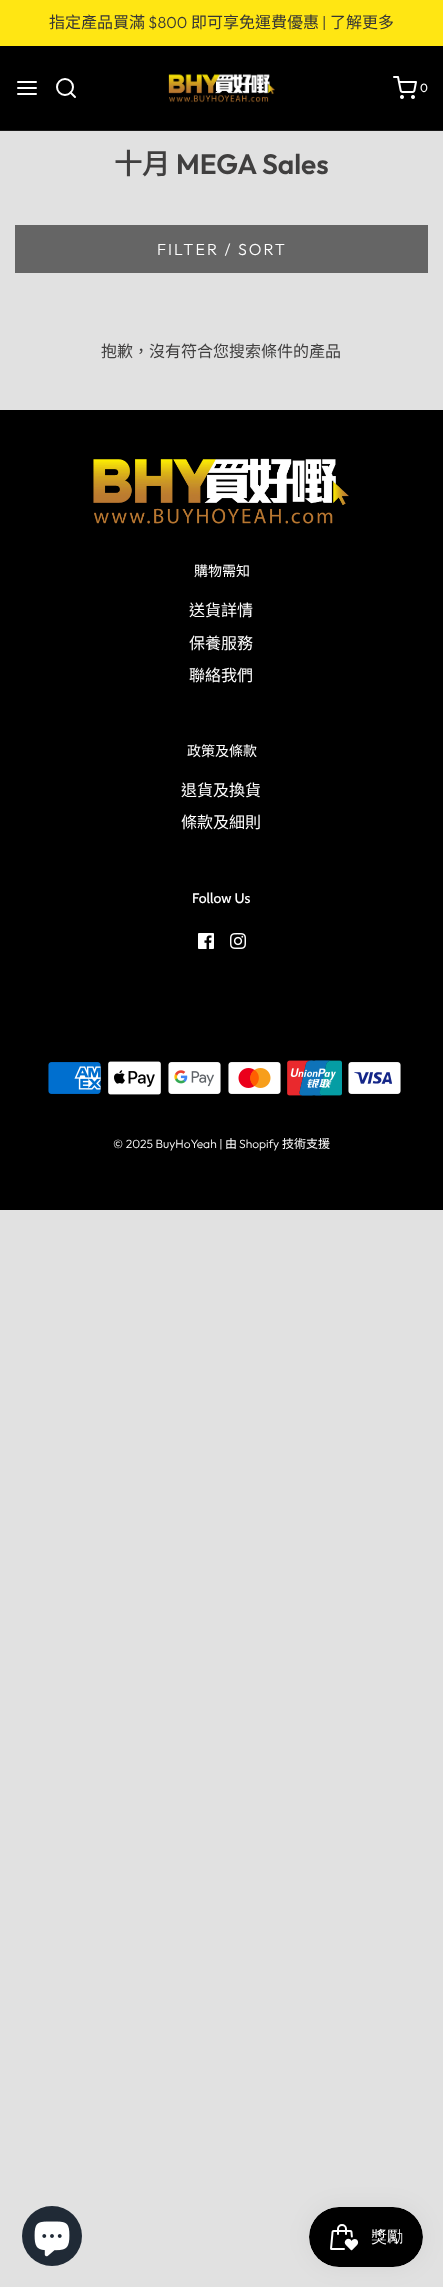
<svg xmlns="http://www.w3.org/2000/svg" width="443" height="2287">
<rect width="100%" height="100%" fill="#e1e1e1"/>
<rect width="443" height="46" fill="#ffe613"/>
<text x="49" y="28" style="font-family:Noto Sans CJK TC;font-size:16px;fill:#363636">指定產品買滿</text>
<text x="148" y="28" style="font-family:Outfit;font-size:16px;font-weight:300;fill:#363636">$800</text>
<text x="191" y="28" style="font-family:Noto Sans CJK TC;font-size:16px;fill:#363636">即可享免運費優惠</text>
<text x="322" y="28" style="font-family:Outfit;font-size:16px;font-weight:300;fill:#363636">|</text>
<text x="330" y="28" style="font-family:Noto Sans CJK TC;font-size:16px;fill:#363636">了解更多</text>
<rect y="46" width="443" height="84" fill="#000"/>
<rect y="130" width="443" height="1" fill="#1a1a1a"/>
<path d="M18 88h18m-18-6h18m-18 12h18" fill="none" stroke="#fff" stroke-width="2" stroke-linecap="round" stroke-linejoin="round"/>
<circle cx="65" cy="87" r="8" fill="none" stroke="#fff" stroke-width="2"/>
<path d="M75 97l-4.5-4.5" fill="none" stroke="#fff" stroke-width="2" stroke-linecap="round" stroke-linejoin="round"/>
<image x="168" y="74" width="107" height="29" href="media/1.png"/>
<image x="393" y="76" width="24" height="23" href="media/2.png"/>
<text x="420" y="92" style="font-family:Outfit;font-size:12px;fill:#fff">0</text>
<text x="114" y="174" style="font-family:Noto Sans CJK TC;font-size:28px;font-weight:bold;fill:#403f3f">十月</text>
<text x="176" y="174" style="font-family:Outfit;font-size:28px;font-weight:600;fill:#403f3f">MEGA Sales</text>
<rect x="15" y="225" width="413" height="48" fill="#656565"/>
<text x="157" y="255" style="font-family:Outfit;font-size:16px;font-weight:300;letter-spacing:2px;fill:#fff">FILTER / SORT</text>
<text x="101" y="357" style="font-family:Noto Sans CJK TC;font-size:16px;fill:#403f3f">抱歉，沒有符合您搜索條件的產品</text>
<rect y="410" width="443" height="800" fill="#000"/>
<image x="93" y="458" width="256" height="66" href="media/3.png"/>
<text x="194" y="576" style="font-family:Noto Sans CJK TC;font-size:14px;fill:#fff">購物需知</text>
<text x="189" y="616" style="font-family:Noto Sans CJK TC;font-size:16px;fill:#fff">送貨詳情</text>
<text x="189" y="649" style="font-family:Noto Sans CJK TC;font-size:16px;fill:#fff">保養服務</text>
<text x="189" y="681" style="font-family:Noto Sans CJK TC;font-size:16px;fill:#fff">聯絡我們</text>
<text x="187" y="756" style="font-family:Noto Sans CJK TC;font-size:14px;fill:#fff">政策及條款</text>
<text x="181" y="796" style="font-family:Noto Sans CJK TC;font-size:16px;fill:#fff">退貨及換貨</text>
<text x="181" y="828" style="font-family:Noto Sans CJK TC;font-size:16px;fill:#fff">條款及細則</text>
<text x="192" y="903" style="font-family:Cabin;font-size:14px;font-weight:500;fill:#fff">Follow Us</text>
<image x="198" y="933" width="16" height="16" href="media/4.png"/>
<image x="230" y="933" width="16" height="16" href="media/5.png"/>
<image x="48" y="1062" width="53" height="32" href="media/6.png"/>
<image x="108" y="1061" width="53" height="34" href="media/7.png"/>
<image x="168" y="1062" width="53" height="32" href="media/8.png"/>
<image x="228" y="1062" width="53" height="32" href="media/9.png"/>
<image x="287" y="1060" width="55" height="36" href="media/10.png"/>
<image x="348" y="1062" width="53" height="32" href="media/11.png"/>
<text x="113" y="1148" style="font-family:Outfit;font-size:12px;font-weight:300;fill:#fff">© 2025 BuyHoYeah |</text>
<text x="225" y="1148" style="font-family:Noto Sans CJK TC;font-size:12px;fill:#fff">由</text>
<text x="239" y="1148" style="font-family:Outfit;font-size:12px;font-weight:300;fill:#fff">Shopify</text>
<text x="282" y="1148" style="font-family:Noto Sans CJK TC;font-size:12px;fill:#fff">技術支援</text>
<circle cx="52" cy="2236" r="30" fill="#202a36"/>
<image x="34" y="2221" width="36" height="36" href="media/12.png"/>
<rect x="309" y="2207" width="114" height="60" rx="30" fill="#0000000d" filter="blur(12.5px)"/>
<image x="309" y="2207" width="114" height="60" href="media/13.png"/>
</svg>
